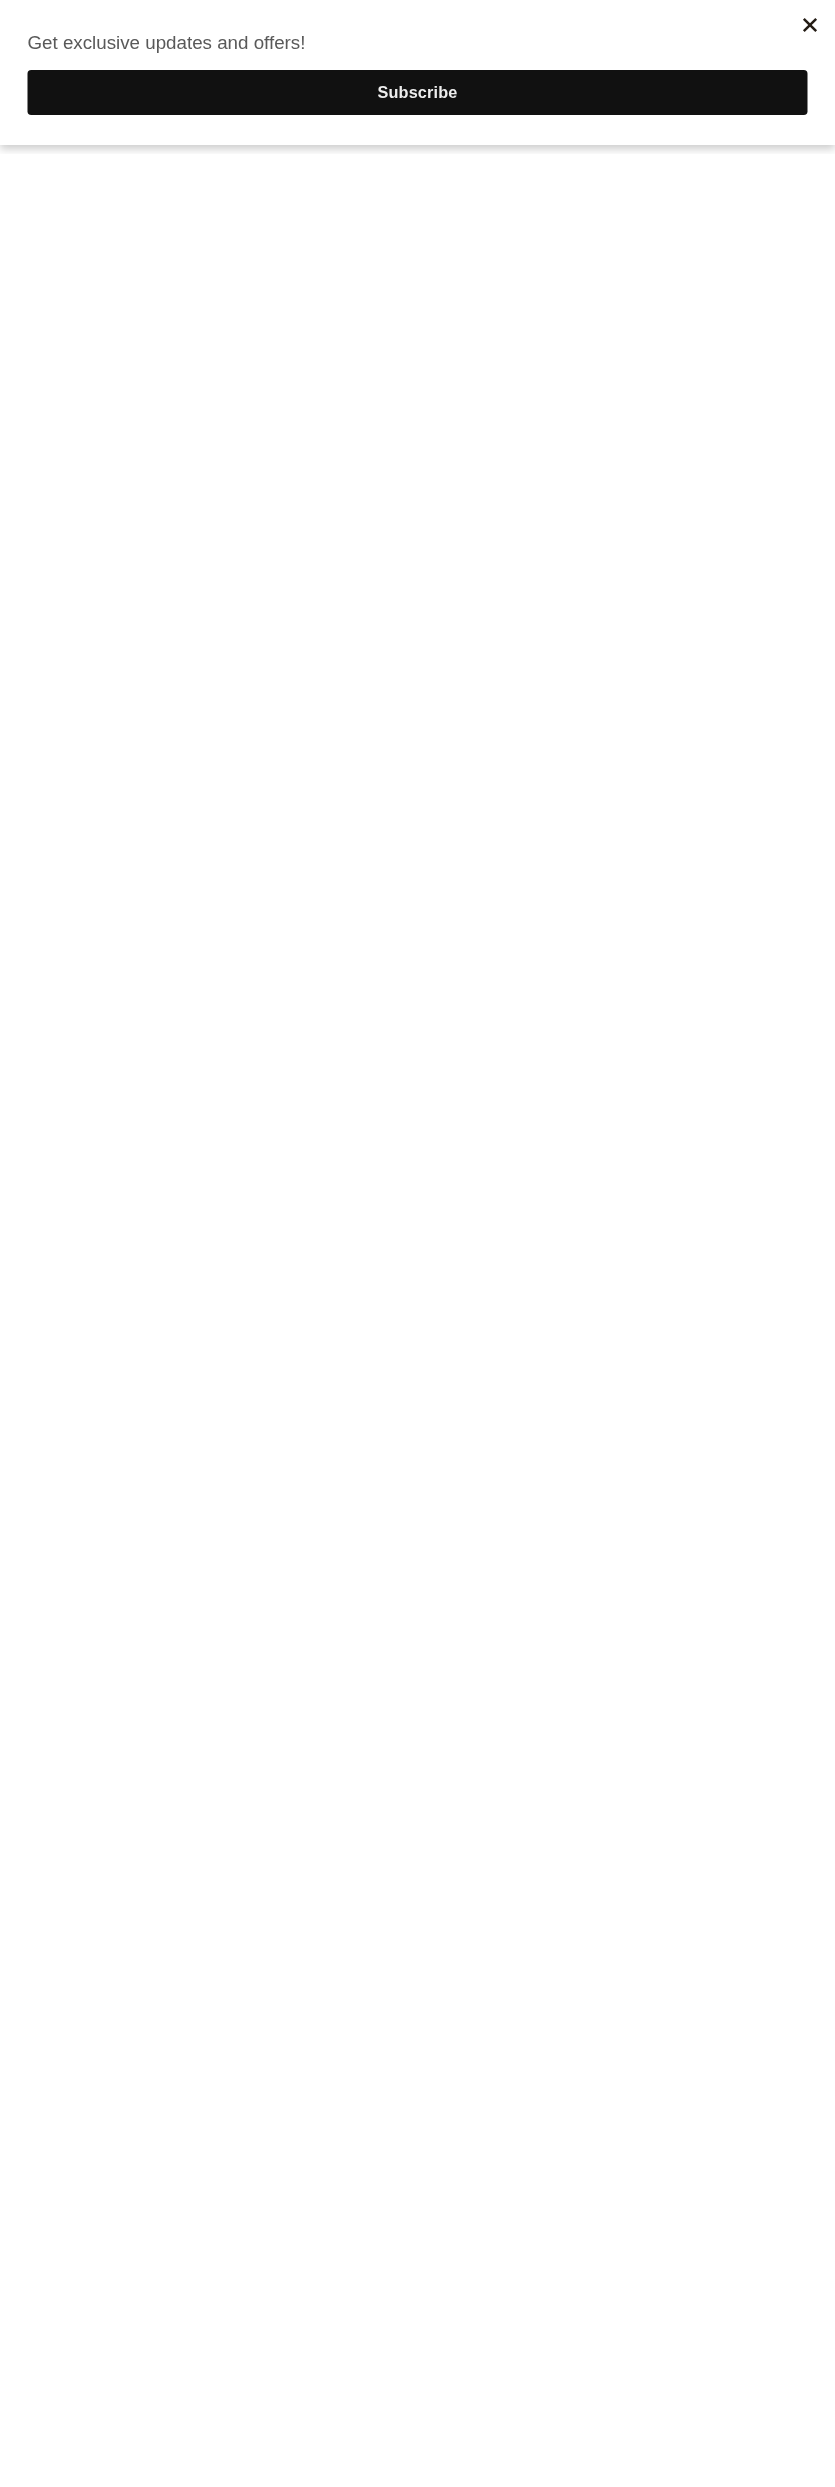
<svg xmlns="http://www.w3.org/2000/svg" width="835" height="2487">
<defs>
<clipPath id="clip1"><rect x="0" y="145" width="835" height="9"/></clipPath>
</defs>
<rect width="100%" height="100%" fill="#fff"/>
<g clip-path="url(#clip1)">
<rect y="4" width="835" height="145" fill="#00000033" filter="blur(4px)"/>
</g>
<image x="27" y="18" width="790" height="97" href="media/1.png"/>
</svg>
